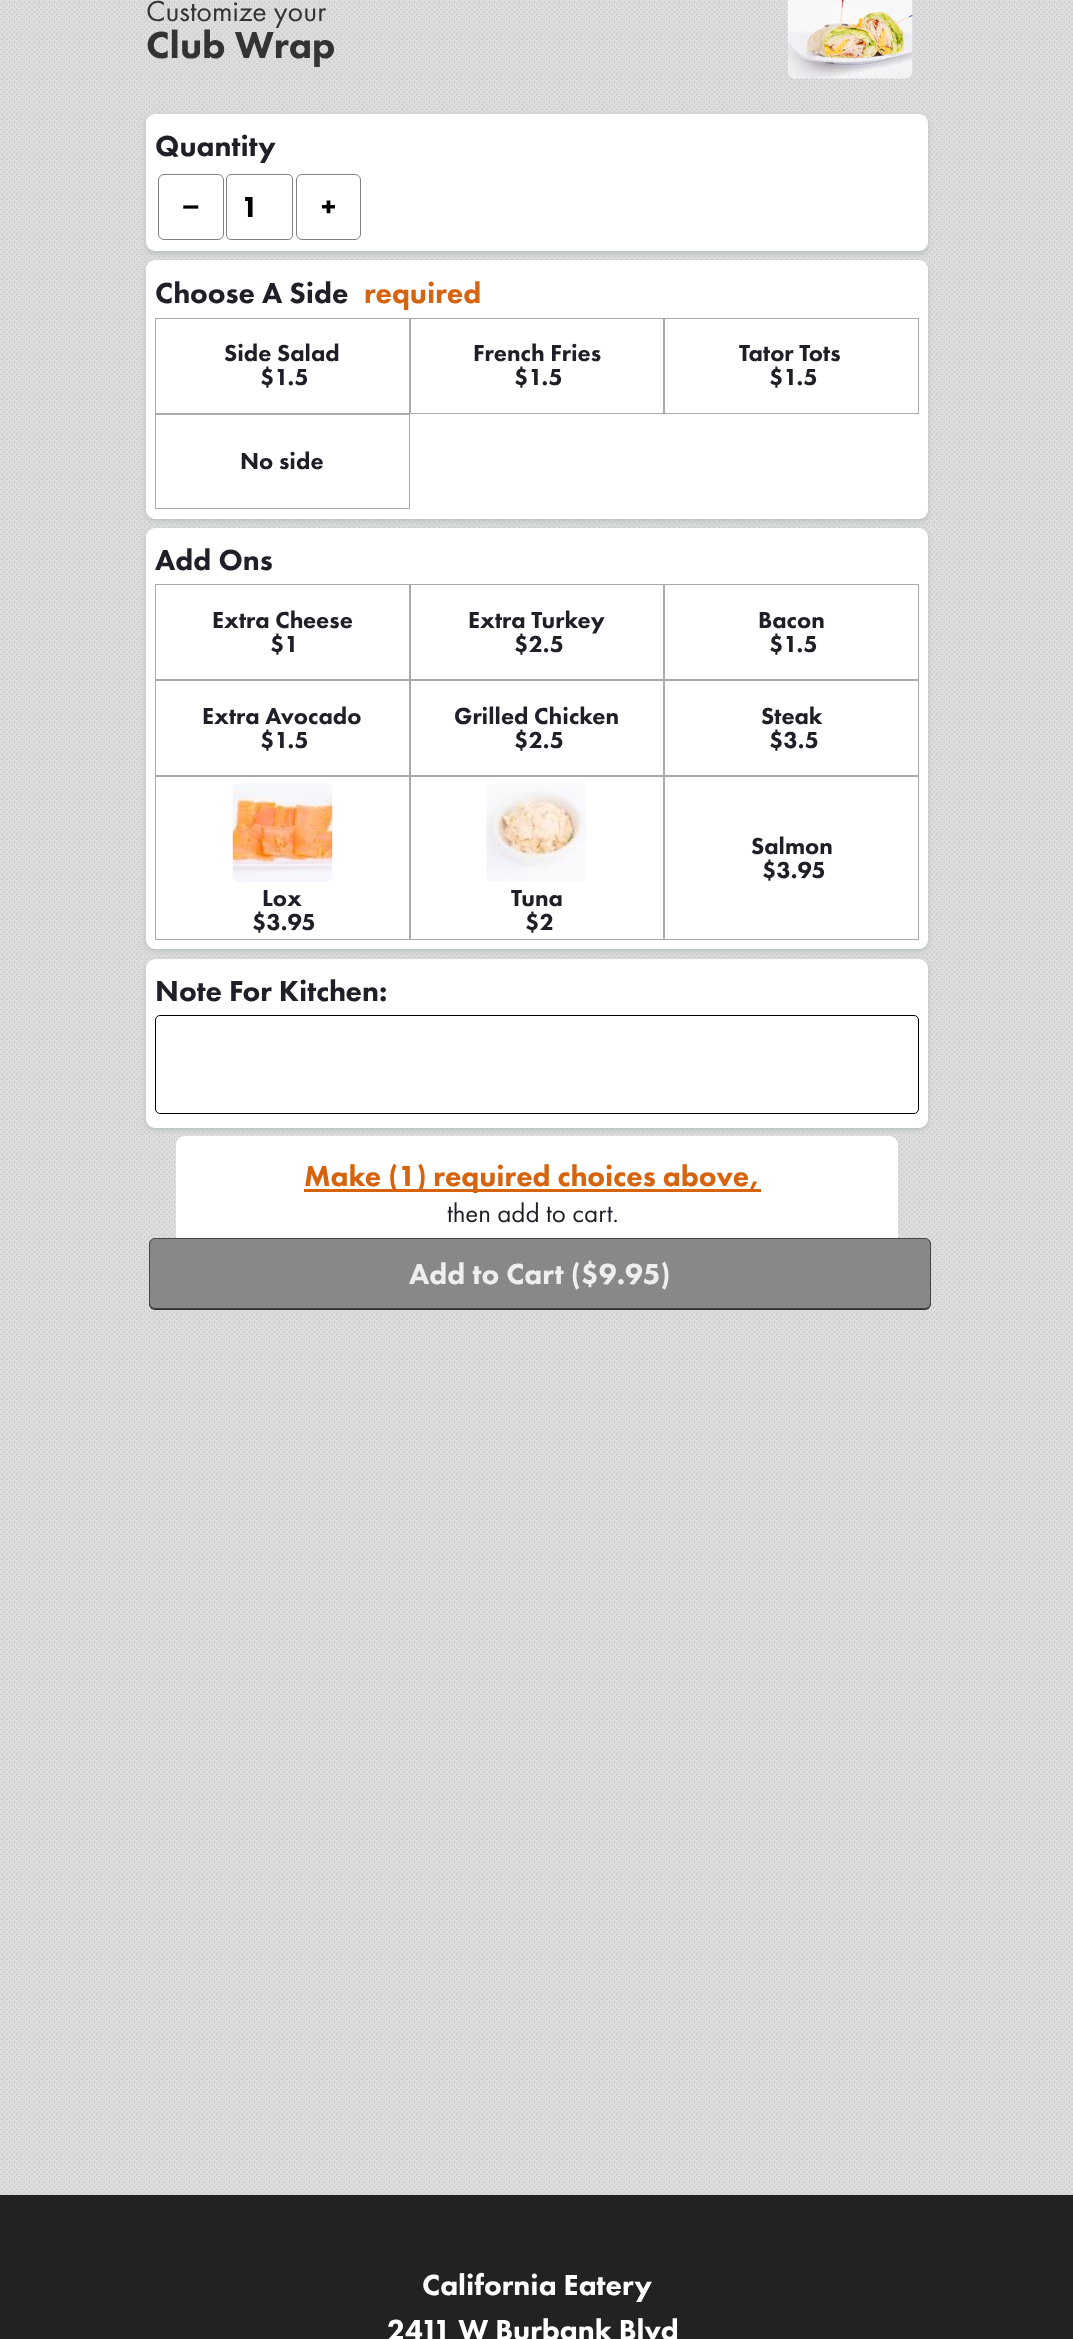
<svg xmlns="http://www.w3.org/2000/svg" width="1073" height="2339">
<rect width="100%" height="100%" fill="#ddd"/>
<image x="1" y="1" width="1072" height="2194" href="media/1.png"/>
<text x="146" y="21" style="font-family:Futura PT;font-size:30px;fill:#333">Customize your</text>
<text x="146" y="58" style="font-family:Futura PT;font-size:39px;font-weight:900;fill:#333">Club Wrap</text>
<image x="787" y="0" width="126" height="79" href="media/2.png"/>
<rect x="146" y="116" width="782" height="138" rx="9" fill="#b7c1bc" filter="blur(2.5px)"/>
<rect x="146" y="114" width="782" height="137" rx="9" fill="#fff"/>
<text x="155" y="156" style="font-family:Futura PT;font-size:30px;font-weight:900;fill:#201f28">Quantity</text>
<rect x="158.5" y="174.5" width="65" height="65" rx="5.5" fill="none" stroke="#808080"/>
<text x="182" y="217" style="font-family:Liberation Sans;font-size:30px;font-weight:bold;fill:#000">−</text>
<rect x="226.5" y="174.5" width="66" height="65" rx="4.5" fill="none" stroke="#808080"/>
<text x="241" y="217" style="font-family:Futura PT;font-size:30px;font-weight:900;fill:#000">1</text>
<rect x="296.5" y="174.5" width="64" height="65" rx="5.5" fill="none" stroke="#808080"/>
<text x="321" y="217" style="font-family:Futura PT;font-size:30px;font-weight:900;fill:#000">+</text>
<rect x="146" y="263" width="782" height="258" rx="9" fill="#b7c1bc" filter="blur(2.5px)"/>
<rect x="146" y="260" width="782" height="259" rx="9" fill="#fff"/>
<text x="155" y="303" style="font-family:Futura PT;font-size:30px;font-weight:900;fill:#201f28">Choose A Side</text>
<text x="364" y="303" style="font-family:Futura PT;font-size:30px;font-weight:900;fill:#d6630e">required</text>
<rect x="155.5" y="318.5" width="254" height="95" fill="none" stroke="#aaa"/>
<text x="224" y="361" style="font-family:Futura PT;font-size:24px;font-weight:900;fill:#201f28">Side Salad</text>
<text x="260" y="385" style="font-family:Futura PT;font-size:24px;font-weight:900;fill:#201f28">$1.5</text>
<rect x="410.5" y="318.5" width="253" height="95" fill="none" stroke="#aaa"/>
<text x="473" y="361" style="font-family:Futura PT;font-size:24px;font-weight:900;fill:#201f28">French Fries</text>
<text x="514" y="385" style="font-family:Futura PT;font-size:24px;font-weight:900;fill:#201f28">$1.5</text>
<rect x="664.5" y="318.5" width="254" height="95" fill="none" stroke="#aaa"/>
<text x="739" y="361" style="font-family:Futura PT;font-size:24px;font-weight:900;fill:#201f28">Tator Tots</text>
<text x="769" y="385" style="font-family:Futura PT;font-size:24px;font-weight:900;fill:#201f28">$1.5</text>
<rect x="155.5" y="414.5" width="254" height="94" fill="none" stroke="#aaa"/>
<text x="240" y="469" style="font-family:Futura PT;font-size:24px;font-weight:900;fill:#201f28">No side</text>
<rect x="146" y="530" width="782" height="421" rx="9" fill="#b7c1bc" filter="blur(2.5px)"/>
<rect x="146" y="528" width="782" height="421" rx="9" fill="#fff"/>
<text x="155" y="570" style="font-family:Futura PT;font-size:30px;font-weight:900;fill:#201f28">Add Ons</text>
<rect x="155.5" y="584.5" width="254" height="95" fill="none" stroke="#aaa"/>
<text x="212" y="628" style="font-family:Futura PT;font-size:24px;font-weight:900;fill:#201f28">Extra Cheese</text>
<text x="270" y="652" style="font-family:Futura PT;font-size:24px;font-weight:900;fill:#201f28">$1</text>
<rect x="410.5" y="584.5" width="253" height="95" fill="none" stroke="#aaa"/>
<text x="468" y="628" style="font-family:Futura PT;font-size:24px;font-weight:900;fill:#201f28">Extra Turkey</text>
<text x="514" y="652" style="font-family:Futura PT;font-size:24px;font-weight:900;fill:#201f28">$2.5</text>
<rect x="664.5" y="584.5" width="254" height="95" fill="none" stroke="#aaa"/>
<text x="758" y="628" style="font-family:Futura PT;font-size:24px;font-weight:900;fill:#201f28">Bacon</text>
<text x="769" y="652" style="font-family:Futura PT;font-size:24px;font-weight:900;fill:#201f28">$1.5</text>
<rect x="155.5" y="680.5" width="254" height="95" fill="none" stroke="#aaa"/>
<text x="202" y="724" style="font-family:Futura PT;font-size:24px;font-weight:900;fill:#201f28">Extra Avocado</text>
<text x="260" y="748" style="font-family:Futura PT;font-size:24px;font-weight:900;fill:#201f28">$1.5</text>
<rect x="410.5" y="680.5" width="253" height="95" fill="none" stroke="#aaa"/>
<text x="454" y="724" style="font-family:Futura PT;font-size:24px;font-weight:900;fill:#201f28">Grilled Chicken</text>
<text x="514" y="748" style="font-family:Futura PT;font-size:24px;font-weight:900;fill:#201f28">$2.5</text>
<rect x="664.5" y="680.5" width="254" height="95" fill="none" stroke="#aaa"/>
<text x="761" y="724" style="font-family:Futura PT;font-size:24px;font-weight:900;fill:#201f28">Steak</text>
<text x="769" y="748" style="font-family:Futura PT;font-size:24px;font-weight:900;fill:#201f28">$3.5</text>
<rect x="664.5" y="776.5" width="254" height="163" fill="none" stroke="#aaa"/>
<text x="751" y="854" style="font-family:Futura PT;font-size:24px;font-weight:900;fill:#201f28">Salmon</text>
<text x="762" y="878" style="font-family:Futura PT;font-size:24px;font-weight:900;fill:#201f28">$3.95</text>
<rect x="155.5" y="776.5" width="254" height="163" fill="none" stroke="#aaa"/>
<image x="232" y="783" width="101" height="99" href="media/3.png"/>
<text x="262" y="906" style="font-family:Futura PT;font-size:24px;font-weight:900;fill:#201f28">Lox</text>
<text x="252" y="930" style="font-family:Futura PT;font-size:24px;font-weight:900;fill:#201f28">$3.95</text>
<rect x="410.5" y="776.5" width="253" height="163" fill="none" stroke="#aaa"/>
<image x="486" y="783" width="100" height="99" href="media/4.png"/>
<text x="511" y="906" style="font-family:Futura PT;font-size:24px;font-weight:900;fill:#201f28">Tuna</text>
<text x="525" y="930" style="font-family:Futura PT;font-size:24px;font-weight:900;fill:#201f28">$2</text>
<rect x="146" y="961" width="782" height="169" rx="9" fill="#b7c1bc" filter="blur(2.5px)"/>
<rect x="146" y="959" width="782" height="169" rx="9" fill="#fff"/>
<text x="155" y="1001" style="font-family:Futura PT;font-size:30px;font-weight:900;fill:#201f28">Note For Kitchen:</text>
<rect x="155.5" y="1015.5" width="763" height="98" rx="4.5" fill="none" stroke="#000"/>
<path d="M185 1136h704c5 0 9 4 9 9v93h-722v-93c0-5 4-9 9-9z" fill="#fff"/>
<rect x="304" y="1189" width="457" height="3" fill="#d6630e"/>
<text x="304" y="1186" style="font-family:Futura PT;font-size:30px;font-weight:900;fill:#d6630e">Make (1) required choices above,</text>
<text x="447" y="1222" style="font-family:Futura PT;font-size:27px;fill:#201f28">then add to cart.</text>
<rect x="149" y="1239" width="782" height="71" rx="6" fill="#000000cc" filter="blur(0.5px)"/>
<rect x="149" y="1238" width="782" height="71" rx="6" fill="#888"/>
<rect x="149.5" y="1238.5" width="781" height="70" rx="5.5" fill="none" stroke="#00000080"/>
<text x="409" y="1284" style="font-family:Futura PT;font-size:30px;font-weight:900;fill:#eee">Add to Cart ($9.95</text>
<text x="660" y="1284" style="font-family:Futura PT;font-size:30px;font-weight:900;fill:#eee">)</text>
<rect y="2195" width="1073" height="144" fill="#222"/>
<text x="422" y="2295" style="font-family:Futura PT;font-size:30px;font-weight:900;fill:#fff">California Eatery</text>
<text x="387" y="2340" style="font-family:Futura PT;font-size:30px;font-weight:900;fill:#fff">2411 W Burbank Blvd</text>
</svg>
